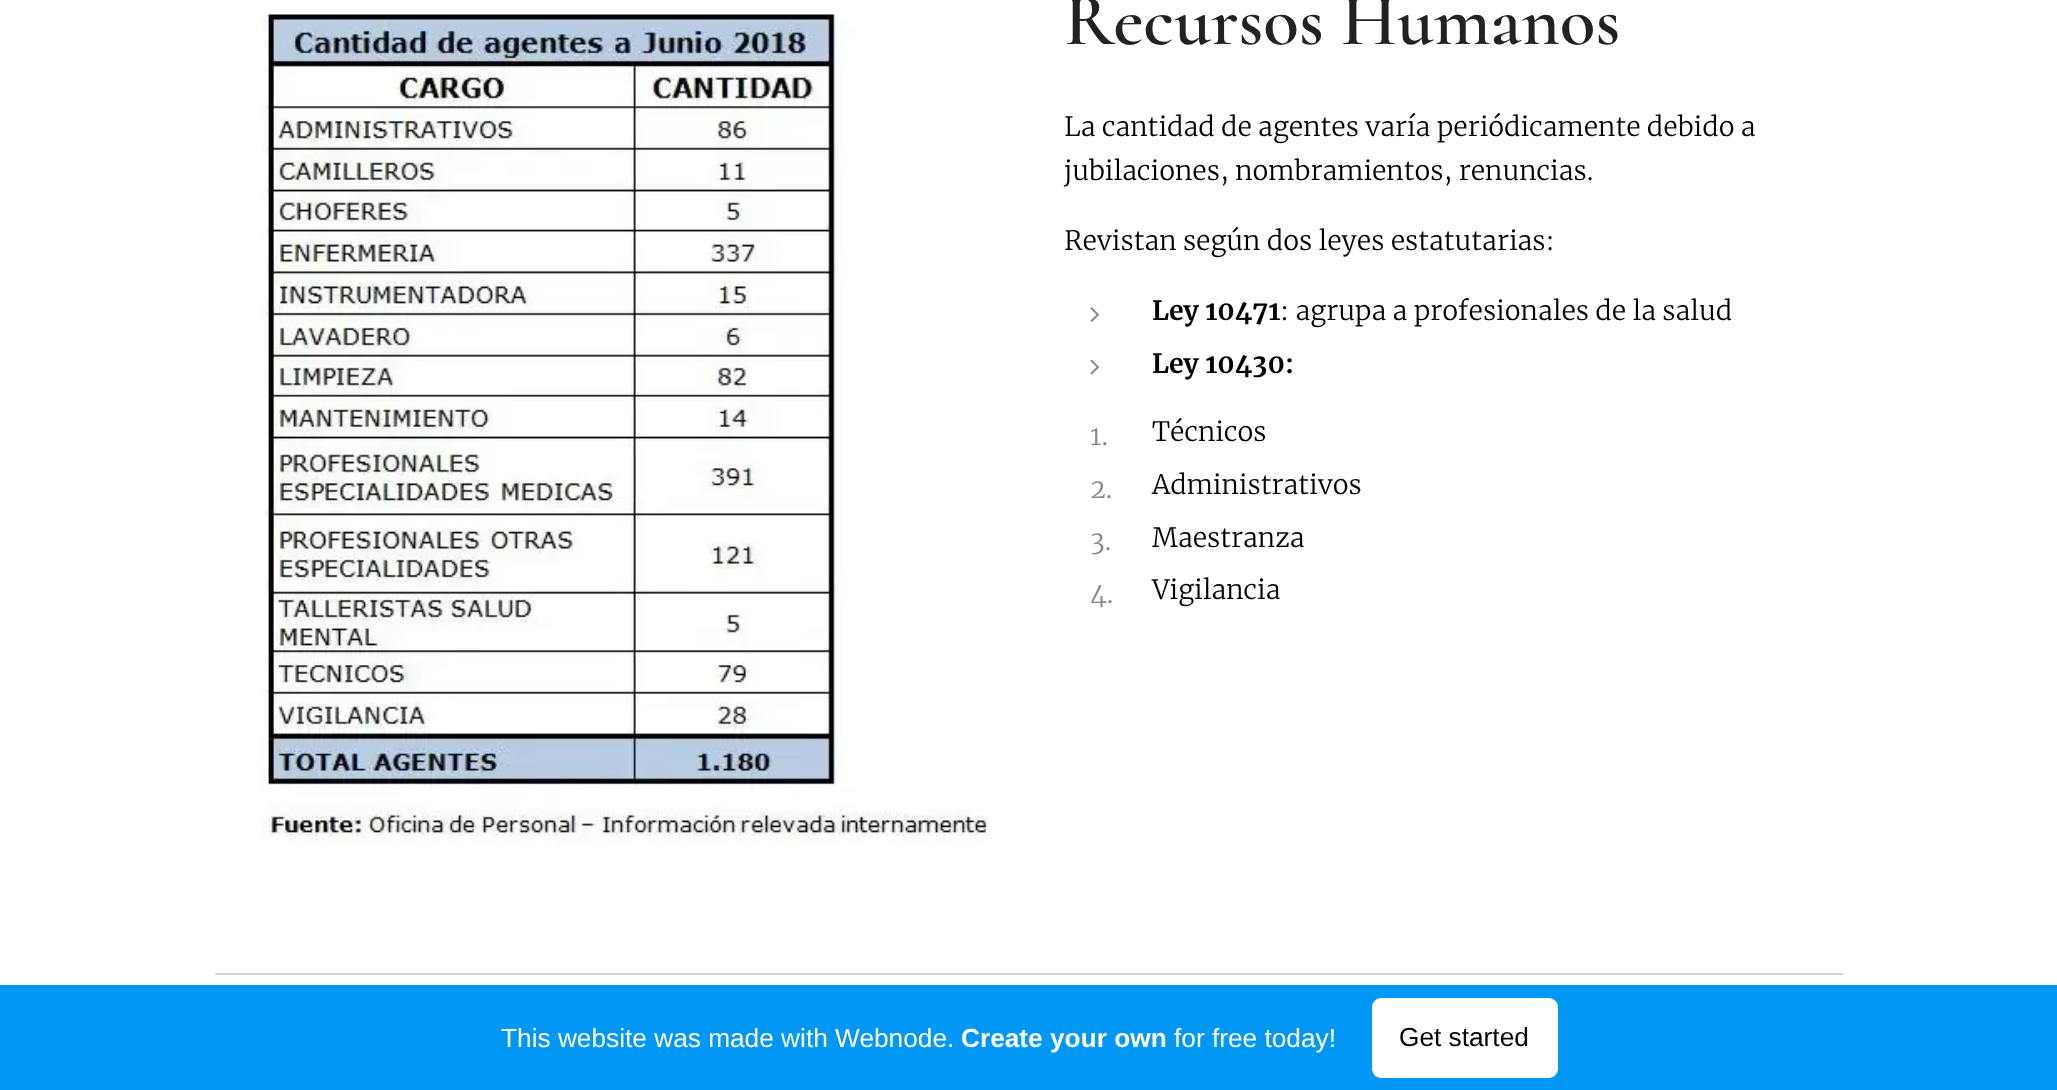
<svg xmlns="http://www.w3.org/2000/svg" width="2057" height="1090">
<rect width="100%" height="100%" fill="#fff"/>
<image x="260" y="14" width="729" height="834" href="media/1.png"/>
<text x="1064" y="44" style="font-family:Cormorant;font-size:73.5px;font-weight:600;fill:#222">Recursos Humanos</text>
<text x="1064" y="136" style="font-family:Merriweather;font-size:26.6px;font-weight:300;fill:#000">La cantidad de agentes varía periódicamente debido a</text>
<text x="1064" y="180" style="font-family:Merriweather;font-size:26.6px;font-weight:300;fill:#000">jubilaciones, nombramientos, renuncias.</text>
<text x="1064" y="250" style="font-family:Merriweather;font-size:26.6px;font-weight:300;fill:#000">Revistan según dos leyes estatutarias:</text>
<image x="1090" y="307" width="9" height="15" href="media/2.png"/>
<text x="1152" y="320" style="font-family:Merriweather;font-size:26.6px;font-weight:bold;fill:#000">Ley 10471</text>
<text x="1280" y="320" style="font-family:Merriweather;font-size:26.6px;font-weight:300;fill:#000">: agrupa a profesionales de la salud</text>
<image x="1090" y="359" width="9" height="16" href="media/3.png"/>
<text x="1152" y="373" style="font-family:Merriweather;font-size:26.6px;font-weight:bold;fill:#000">Ley 10430:</text>
<text x="1090" y="445" style="font-family:Merriweather;font-size:26.6px;font-weight:300;fill:#888">1.</text>
<text x="1152" y="441" style="font-family:Merriweather;font-size:26.6px;font-weight:300;fill:#000">Técnicos</text>
<text x="1090" y="498" style="font-family:Merriweather;font-size:26.6px;font-weight:300;fill:#888">2.</text>
<text x="1152" y="494" style="font-family:Merriweather;font-size:26.6px;font-weight:300;fill:#000">Administrativos</text>
<text x="1090" y="550" style="font-family:Merriweather;font-size:26.6px;font-weight:300;fill:#888">3.</text>
<text x="1152" y="547" style="font-family:Merriweather;font-size:26.6px;font-weight:300;fill:#000">Maestranza</text>
<text x="1090" y="603" style="font-family:Merriweather;font-size:26.6px;font-weight:300;fill:#888">4.</text>
<text x="1152" y="599" style="font-family:Merriweather;font-size:26.6px;font-weight:300;fill:#000">Vigilancia</text>
<rect x="215" y="973" width="1628" height="2" fill="#d4d4d4"/>
<rect y="985" width="2057" height="105" fill="#0097f5"/>
<text x="501" y="1047" style="font-family:Liberation Sans;font-size:26.25px;fill:#fff">This website was made with Webnode.</text>
<text x="961" y="1047" style="font-family:Liberation Sans;font-size:26.25px;font-weight:bold;fill:#fff">Create your own</text>
<text x="1174" y="1047" style="font-family:Liberation Sans;font-size:26.25px;fill:#fff">for free today!</text>
<rect x="1372" y="998" width="186" height="80" rx="9" fill="#fff"/>
<text x="1399" y="1046" style="font-family:Liberation Sans;font-size:26.25px;fill:#000">Get started</text>
</svg>
